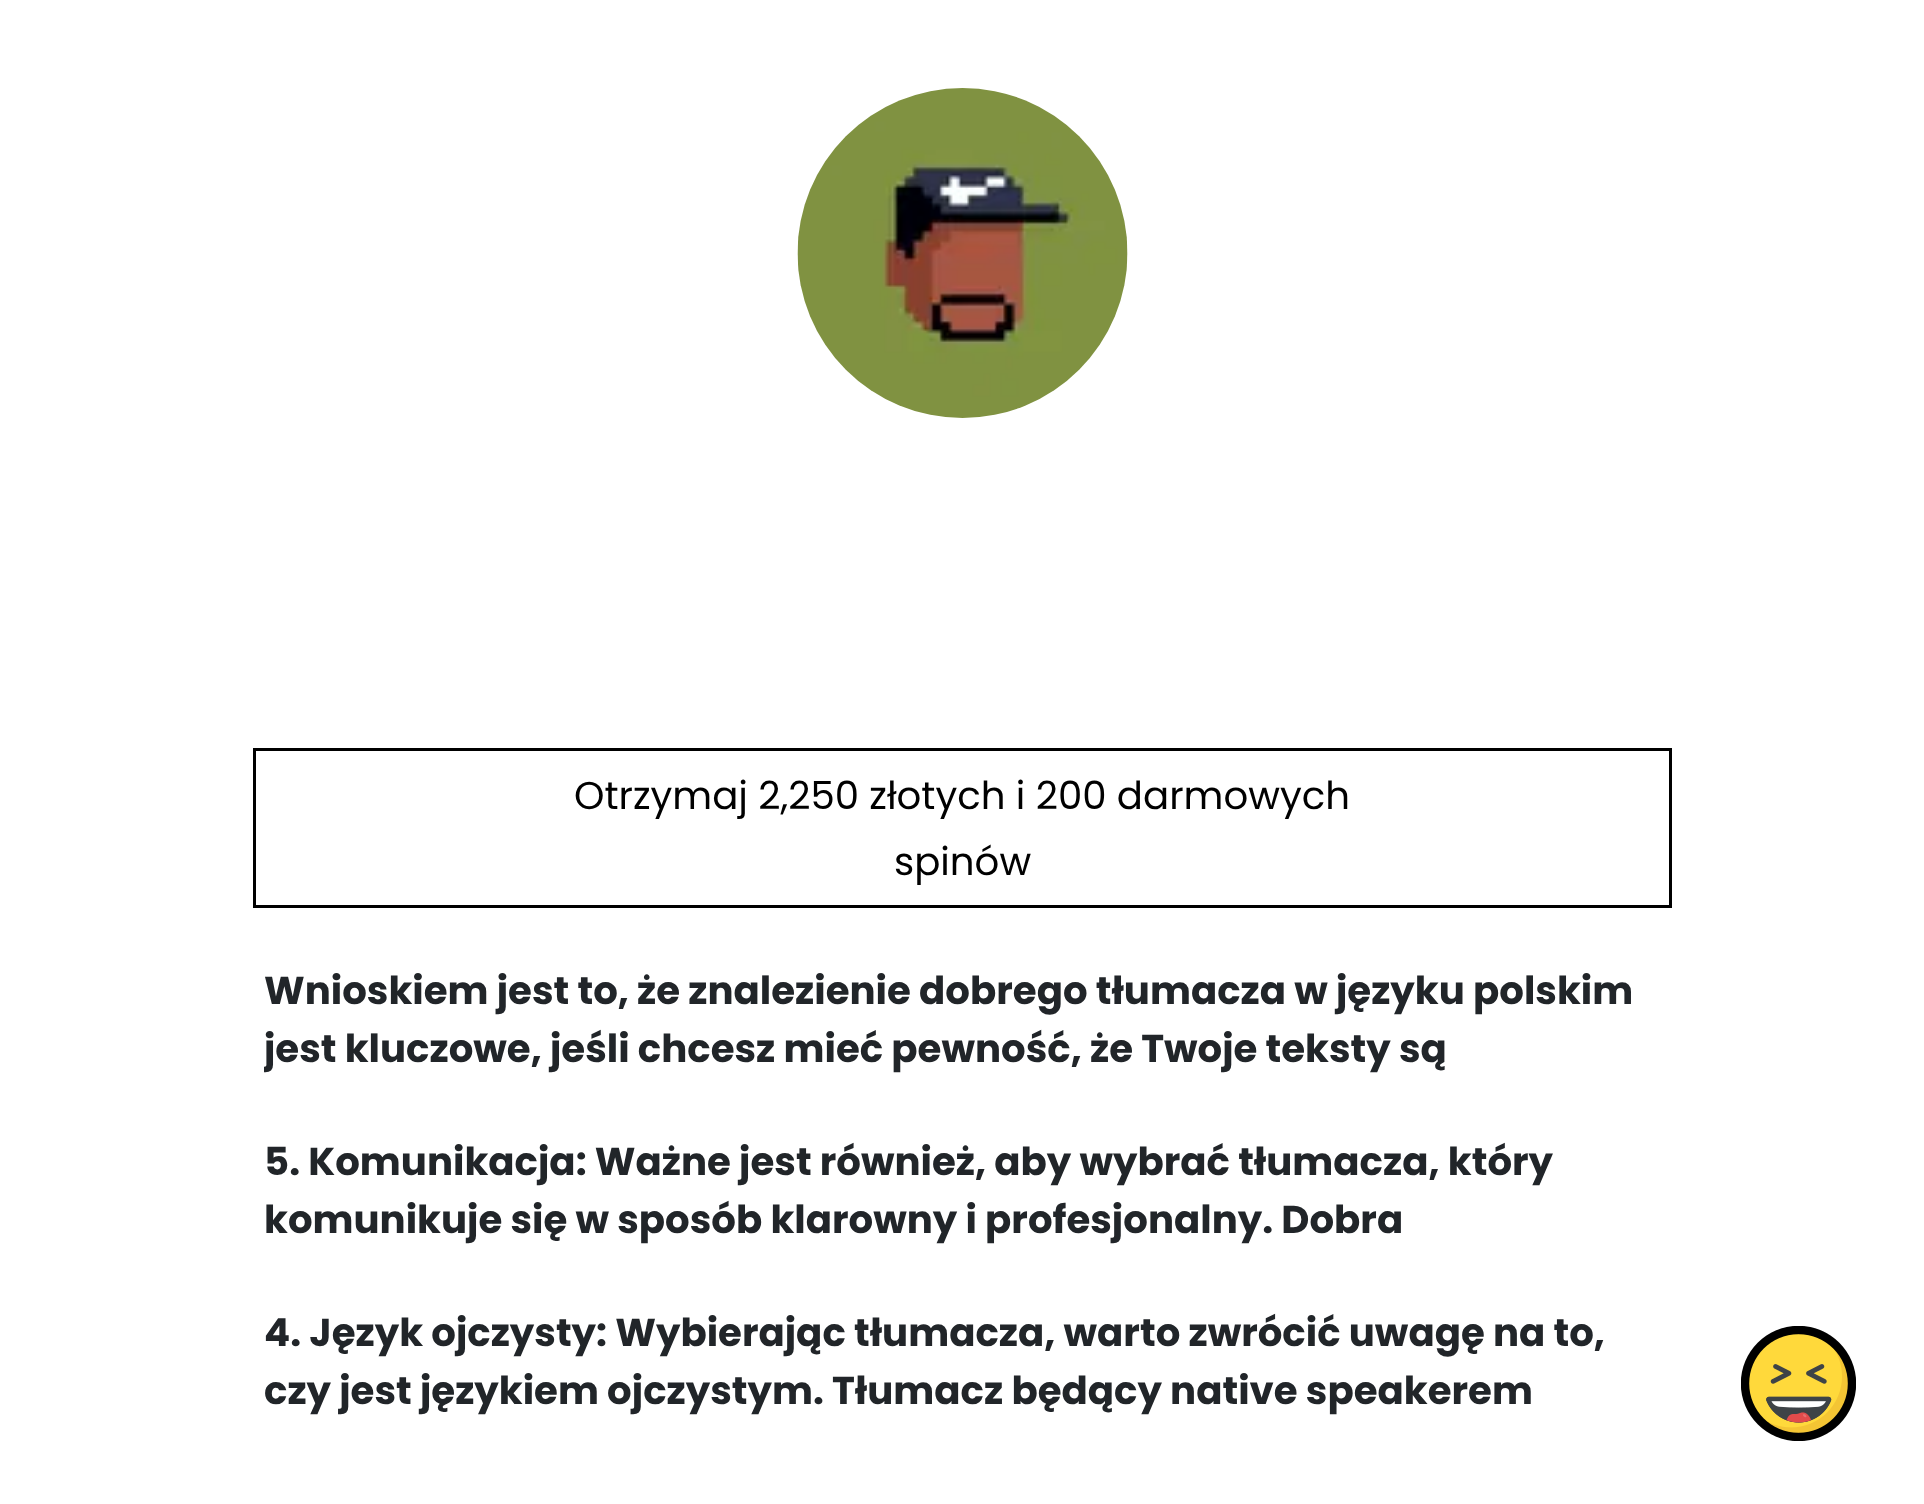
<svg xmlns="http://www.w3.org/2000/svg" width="1924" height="1504">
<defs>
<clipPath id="clip1"><rect x="264" y="963" width="1397" height="115"/></clipPath>
</defs>
<rect width="100%" height="100%" fill="#fff"/>
<image x="797" y="88" width="331" height="330" href="media/1.png"/>
<rect x="254.5" y="749.5" width="1416" height="157" fill="none" stroke="#000" stroke-width="3"/>
<text x="574" y="809" style="font-family:Poppins;font-size:38.7px;fill:#000">Otrzymaj 2,250 złotych i 200 darmowych</text>
<text x="894" y="875" style="font-family:Poppins;font-size:38.7px;fill:#000">spinów</text>
<text x="264" y="1004" style="font-family:Poppins;font-size:38.7px;font-weight:bold;fill:#212529">Wnioskiem jest to, że znalezienie dobrego tłumacza w języku polskim</text>
<g clip-path="url(#clip1)">
<text x="264" y="1062" style="font-family:Poppins;font-size:38.7px;font-weight:bold;fill:#212529">jest kluczowe, jeśli chcesz mieć pewność, że Twoje teksty są</text>
</g>
<text x="264" y="1175" style="font-family:Poppins;font-size:38.7px;font-weight:bold;fill:#212529">5. Komunikacja: Ważne jest również, aby wybrać tłumacza, który</text>
<text x="264" y="1233" style="font-family:Poppins;font-size:38.7px;font-weight:bold;fill:#212529">komunikuje się w sposób klarowny i profesjonalny. Dobra</text>
<text x="264" y="1346" style="font-family:Poppins;font-size:38.7px;font-weight:bold;fill:#212529">4. Język ojczysty: Wybierając tłumacza, warto zwrócić uwagę na to,</text>
<text x="264" y="1404" style="font-family:Poppins;font-size:38.7px;font-weight:bold;fill:#212529">czy jest językiem ojczystym. Tłumacz będący native speakerem</text>
<image x="1741" y="1326" width="115" height="115" href="media/2.png"/>
</svg>
